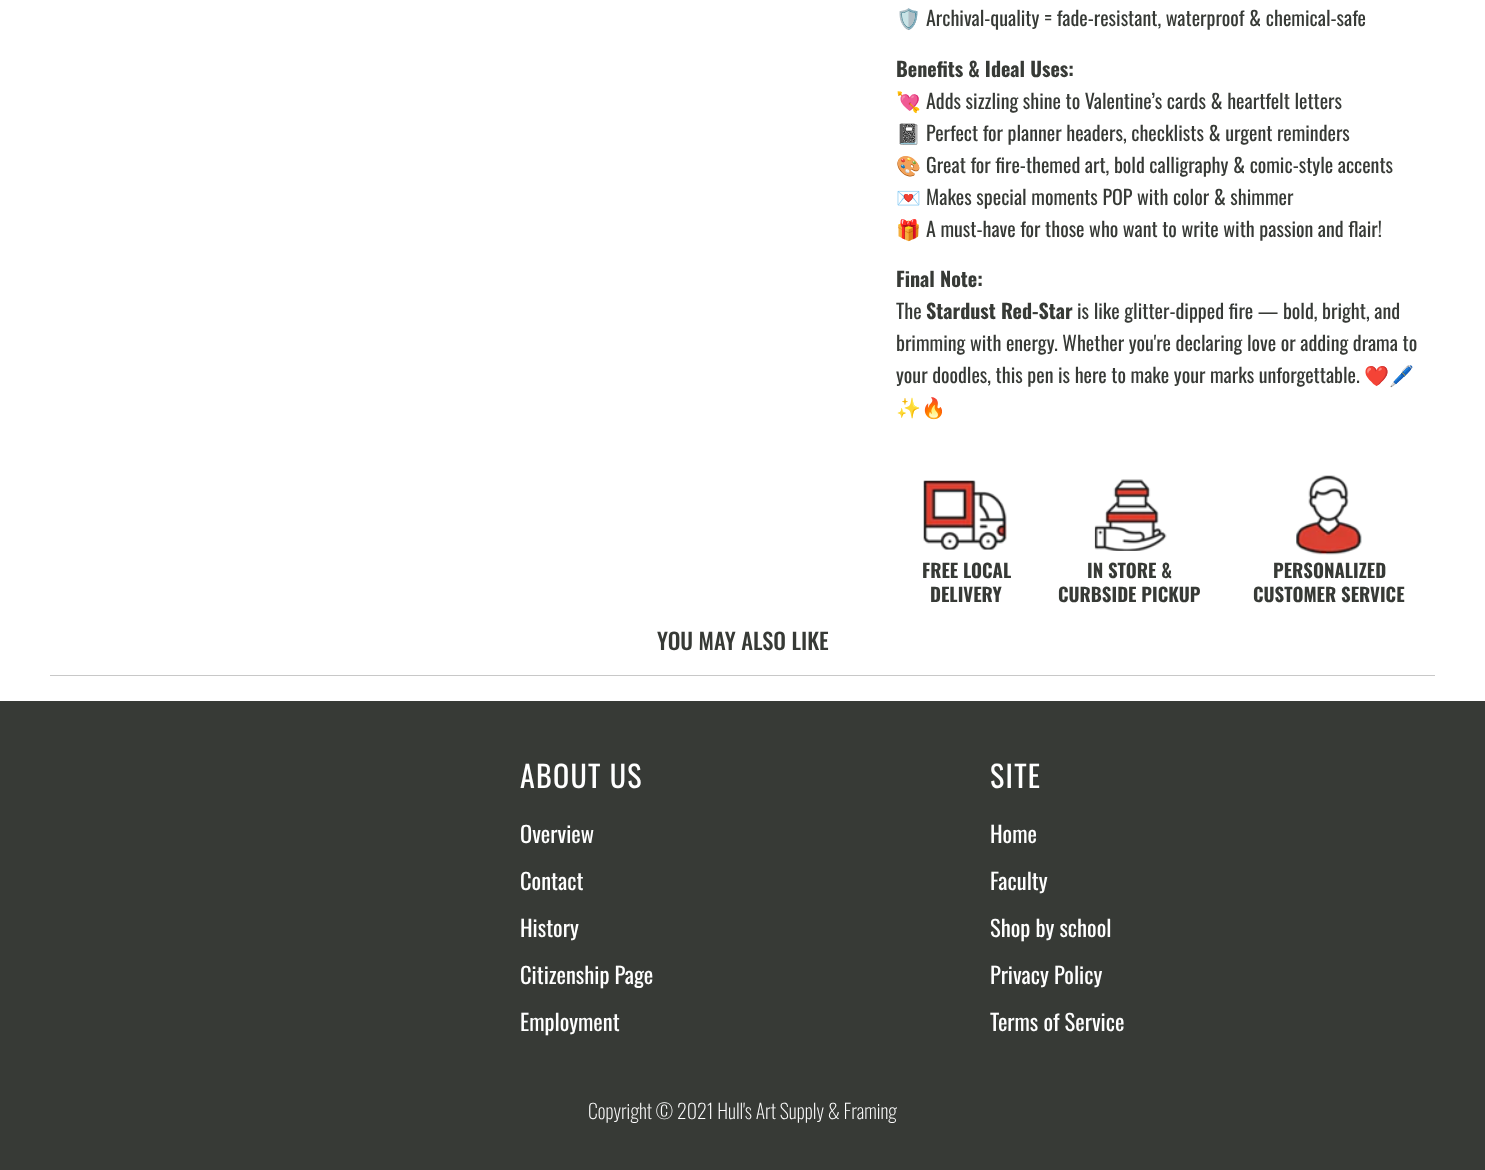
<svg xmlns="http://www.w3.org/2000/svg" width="1485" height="1170">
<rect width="100%" height="100%" fill="#fff"/>
<text x="896" y="26" style="font-family:Noto Color Emoji;font-size:20px;fill:#373a36">🛡️</text>
<text x="926" y="26" style="font-family:Oswald;font-size:20px;fill:#373a36">Archival-quality = fade-resistant, waterproof &amp; chemical-safe</text>
<text x="896" y="77" style="font-family:Oswald;font-size:20px;font-weight:bold;fill:#373a36">Benefits &amp; Ideal Uses:</text>
<text x="896" y="109" style="font-family:Noto Color Emoji;font-size:20px;fill:#373a36">💘</text>
<text x="926" y="109" style="font-family:Oswald;font-size:20px;fill:#373a36">Adds sizzling shine to Valentine’s cards &amp; heartfelt letters</text>
<text x="896" y="141" style="font-family:Noto Color Emoji;font-size:20px;fill:#373a36">📓</text>
<text x="926" y="141" style="font-family:Oswald;font-size:20px;fill:#373a36">Perfect for planner headers, checklists &amp; urgent reminders</text>
<text x="896" y="173" style="font-family:Noto Color Emoji;font-size:20px;fill:#373a36">🎨</text>
<text x="926" y="173" style="font-family:Oswald;font-size:20px;fill:#373a36">Great for fire-themed art, bold calligraphy &amp; comic-style accents</text>
<text x="896" y="205" style="font-family:Noto Color Emoji;font-size:20px;fill:#373a36">💌</text>
<text x="926" y="205" style="font-family:Oswald;font-size:20px;fill:#373a36">Makes special moments POP with color &amp; shimmer</text>
<text x="896" y="237" style="font-family:Noto Color Emoji;font-size:20px;fill:#373a36">🎁</text>
<text x="926" y="237" style="font-family:Oswald;font-size:20px;fill:#373a36">A must-have for those who want to write with passion and flair!</text>
<text x="896" y="287" style="font-family:Oswald;font-size:20px;font-weight:bold;fill:#373a36">Final Note:</text>
<text x="896" y="319" style="font-family:Oswald;font-size:20px;fill:#373a36">The</text>
<text x="926" y="319" style="font-family:Oswald;font-size:20px;font-weight:bold;fill:#373a36">Stardust Red-Star</text>
<text x="1077" y="319" style="font-family:Oswald;font-size:20px;fill:#373a36">is like glitter-dipped fire — bold, bright, and</text>
<text x="896" y="351" style="font-family:Oswald;font-size:20px;fill:#373a36">brimming with energy. Whether you're declaring love or adding drama to</text>
<text x="896" y="383" style="font-family:Oswald;font-size:20px;fill:#373a36">your doodles, this pen is here to make your marks unforgettable.</text>
<text x="1364" y="383" style="font-family:Noto Color Emoji;font-size:20px;fill:#373a36">❤️🖊️</text>
<text x="896" y="415" style="font-family:Noto Color Emoji;font-size:20px;fill:#373a36">✨🔥</text>
<image x="923" y="480" width="84" height="70" href="media/1.png"/>
<text x="922" y="578" style="font-family:Oswald;font-size:18.75px;font-weight:bold;fill:#373a36">FREE LOCAL</text>
<text x="930" y="602" style="font-family:Oswald;font-size:18.75px;font-weight:bold;fill:#373a36">DELIVERY</text>
<image x="1094" y="479" width="73" height="72" href="media/2.png"/>
<text x="1087" y="578" style="font-family:Oswald;font-size:18.75px;font-weight:bold;fill:#373a36">IN STORE &amp;</text>
<text x="1058" y="602" style="font-family:Oswald;font-size:18.75px;font-weight:bold;fill:#373a36">CURBSIDE PICKUP</text>
<image x="1296" y="475" width="66" height="80" href="media/3.png"/>
<text x="1273" y="578" style="font-family:Oswald;font-size:18.75px;font-weight:bold;fill:#373a36">PERSONALIZED</text>
<text x="1253" y="602" style="font-family:Oswald;font-size:18.75px;font-weight:bold;fill:#373a36">CUSTOMER SERVICE</text>
<text x="657" y="650" style="font-family:Oswald;font-size:22.5px;font-weight:500;fill:#373a36">YOU MAY ALSO LIKE</text>
<rect x="50" y="675" width="1385" height="1" fill="#c8c8c8"/>
<rect y="701" width="1485" height="469" fill="#373a36"/>
<text x="520" y="788" style="font-family:Oswald;font-size:30px;letter-spacing:1.25px;fill:#fff">ABOUT US</text>
<text x="520" y="843" style="font-family:Oswald;font-size:22.5px;fill:#fff">Overview</text>
<text x="520" y="890" style="font-family:Oswald;font-size:22.5px;fill:#fff">Contact</text>
<text x="520" y="937" style="font-family:Oswald;font-size:22.5px;fill:#fff">History</text>
<text x="520" y="984" style="font-family:Oswald;font-size:22.5px;fill:#fff">Citizenship Page</text>
<text x="520" y="1031" style="font-family:Oswald;font-size:22.5px;fill:#fff">Employment</text>
<text x="990" y="788" style="font-family:Oswald;font-size:30px;letter-spacing:1.25px;fill:#fff">SITE</text>
<text x="990" y="843" style="font-family:Oswald;font-size:22.5px;fill:#fff">Home</text>
<text x="990" y="890" style="font-family:Oswald;font-size:22.5px;fill:#fff">Faculty</text>
<text x="990" y="937" style="font-family:Oswald;font-size:22.5px;fill:#fff">Shop by school</text>
<text x="990" y="984" style="font-family:Oswald;font-size:22.5px;fill:#fff">Privacy Policy</text>
<text x="990" y="1031" style="font-family:Oswald;font-size:22.5px;fill:#fff">Terms of Service</text>
<text x="588" y="1119" style="font-family:Oswald;font-size:20px;font-weight:200;fill:#fff">Copyright © 2021 Hull's Art Supply &amp; Framing</text>
</svg>
